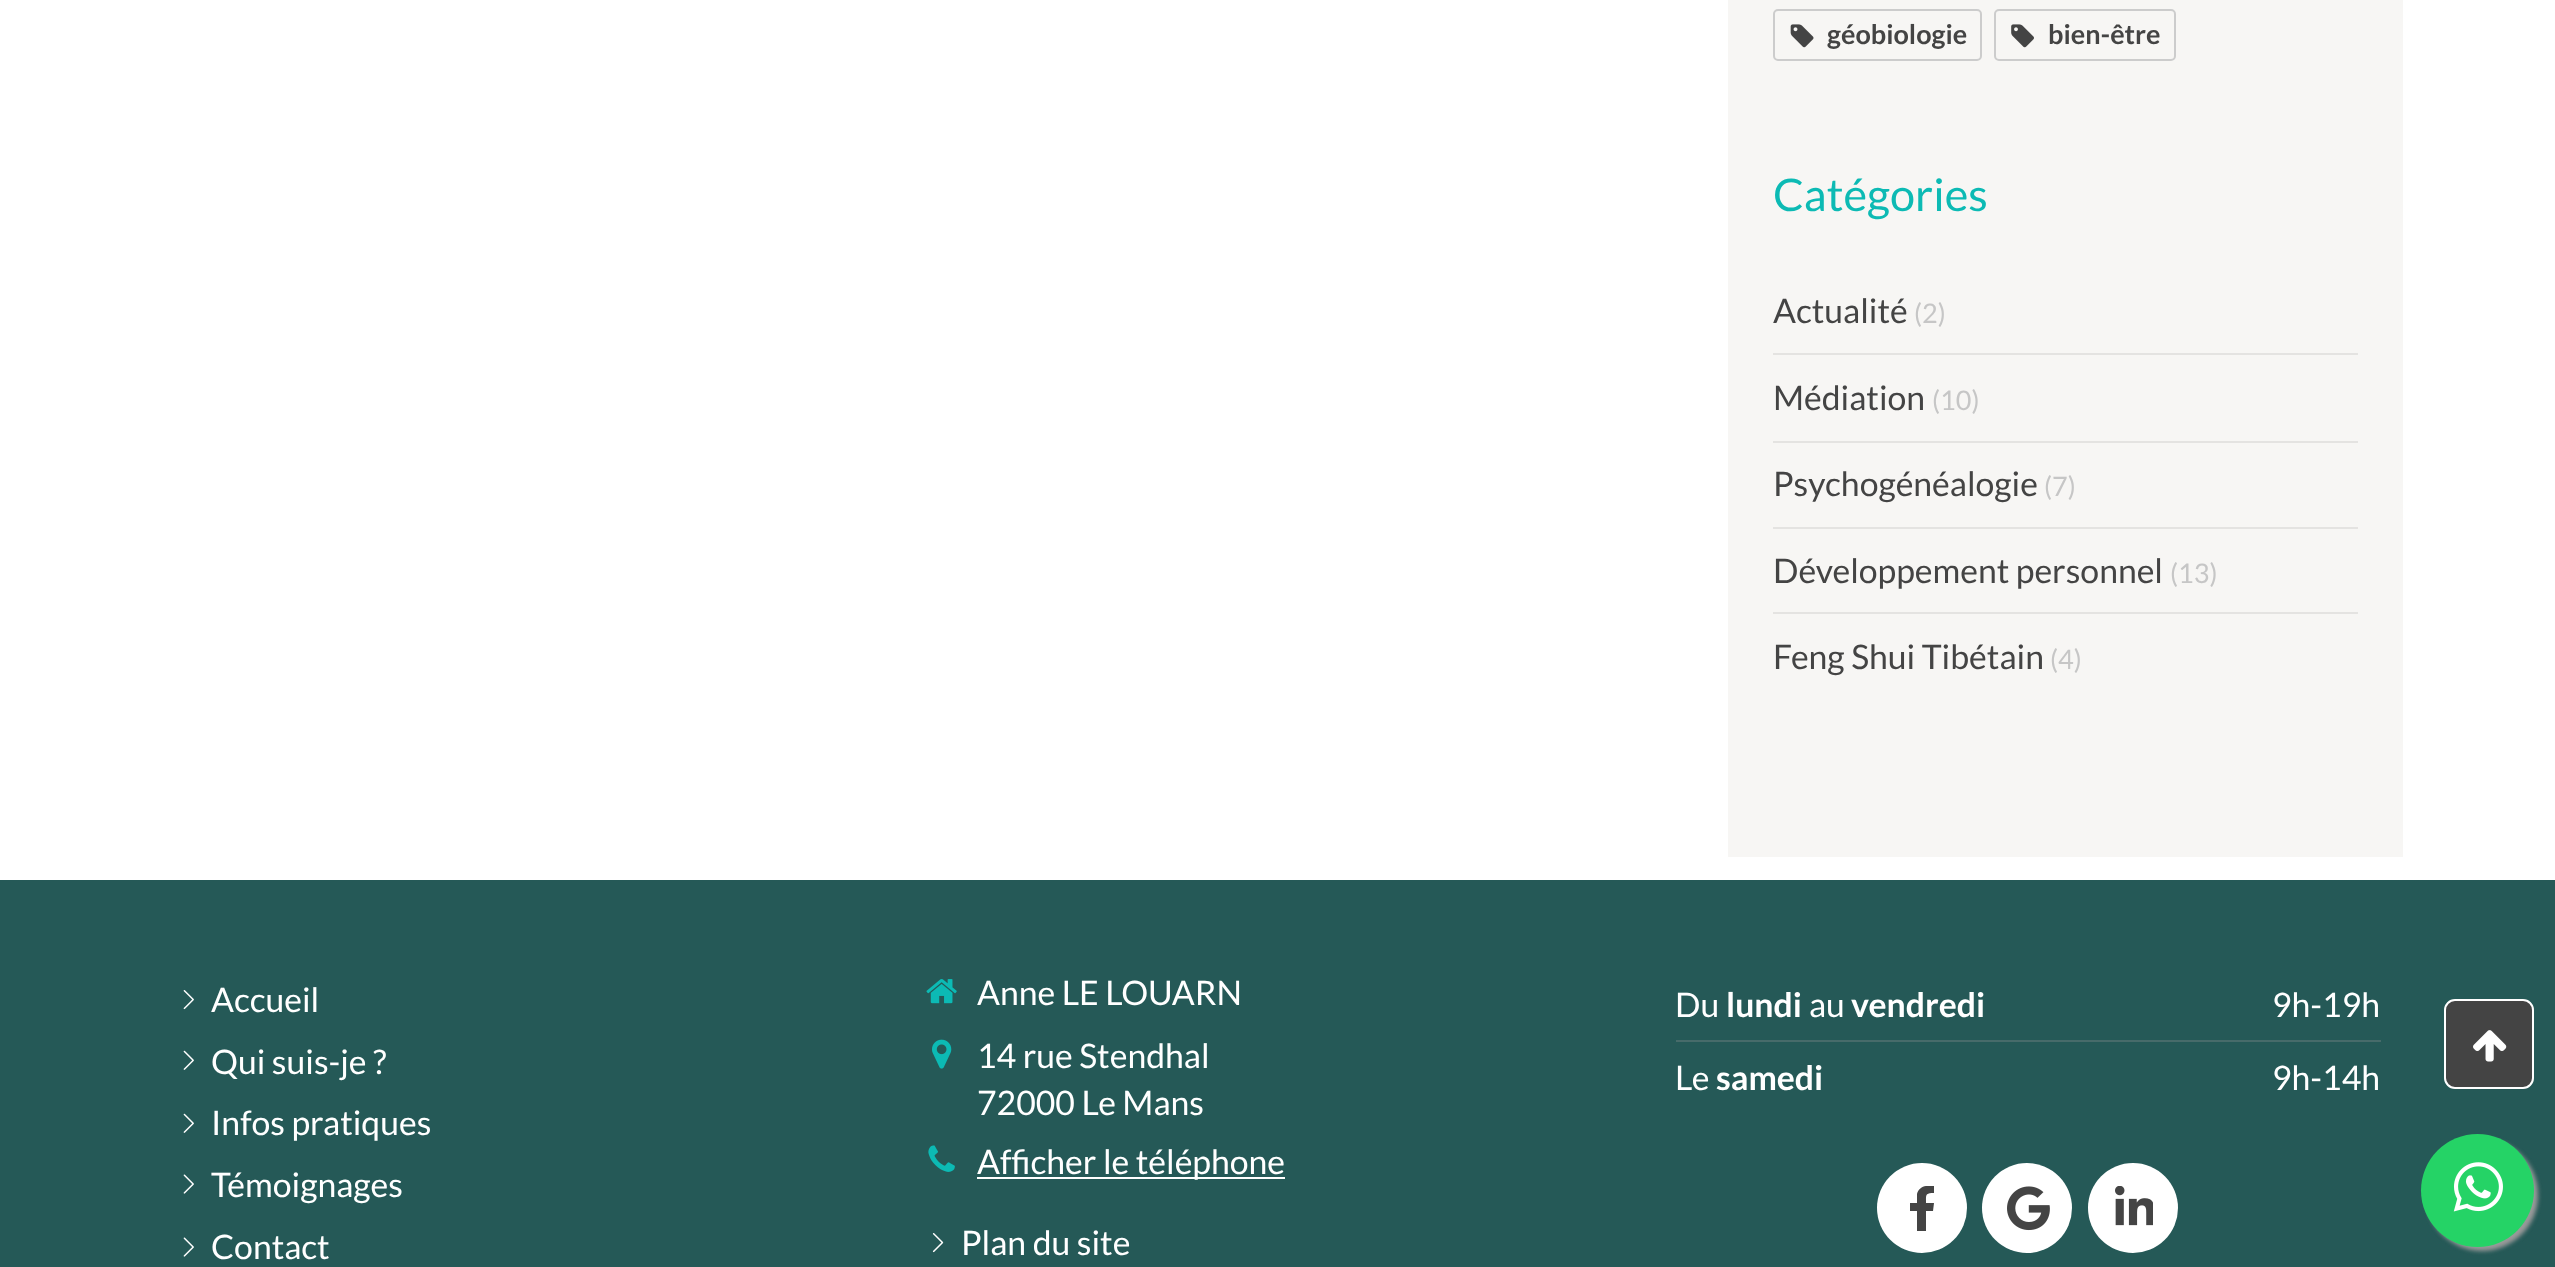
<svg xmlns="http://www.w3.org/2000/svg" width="2555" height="1267">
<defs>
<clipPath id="clip1"><rect x="1908" y="1186" width="27" height="45"/></clipPath>
</defs>
<rect width="100%" height="100%" fill="#fff"/>
<rect x="1728" width="675" height="857" fill="#f7f6f4"/>
<rect x="1774" y="10" width="207" height="50" rx="4" fill="none" stroke="#ccc" stroke-width="2"/>
<image x="1790" y="24" width="24" height="24" href="media/1.png"/>
<text x="1827" y="44" style="font-family:Lato;font-size:27px;font-weight:bold;fill:#444">géobiologie</text>
<rect x="1995" y="10" width="180" height="50" rx="4" fill="none" stroke="#ccc" stroke-width="2"/>
<image x="2011" y="24" width="23" height="24" href="media/2.png"/>
<text x="2048" y="44" style="font-family:Lato;font-size:27px;font-weight:bold;fill:#444">bien-être</text>
<text x="1773" y="211" style="font-family:Lato;font-size:45px;fill:#0cbab4">Catégories</text>
<text x="1773" y="323" style="font-family:Lato;font-size:33.75px;fill:#444">Actualité</text>
<text x="1914" y="323" style="font-family:Lato;font-size:27px;fill:#c6c6c6">(2)</text>
<rect x="1773" y="353" width="585" height="2" fill="#e4e3e1"/>
<text x="1773" y="410" style="font-family:Lato;font-size:33.75px;fill:#444">Médiation</text>
<text x="1932" y="410" style="font-family:Lato;font-size:27px;fill:#c6c6c6">(10)</text>
<rect x="1773" y="441" width="585" height="2" fill="#e4e3e1"/>
<text x="1773" y="496" style="font-family:Lato;font-size:33.75px;fill:#444">Psychogénéalogie</text>
<text x="2044" y="496" style="font-family:Lato;font-size:27px;fill:#c6c6c6">(7)</text>
<rect x="1773" y="527" width="585" height="2" fill="#e4e3e1"/>
<text x="1773" y="583" style="font-family:Lato;font-size:33.75px;fill:#444">Développement personnel</text>
<text x="2170" y="583" style="font-family:Lato;font-size:27px;fill:#c6c6c6">(13)</text>
<rect x="1773" y="612" width="585" height="2" fill="#e4e3e1"/>
<text x="1773" y="669" style="font-family:Lato;font-size:33.75px;fill:#444">Feng Shui Tibétain</text>
<text x="2050" y="669" style="font-family:Lato;font-size:27px;fill:#c6c6c6">(4)</text>
<rect y="880" width="2555" height="387" fill="#255957"/>
<image x="183" y="990" width="11" height="20" href="media/3.png"/>
<text x="211" y="1012" style="font-family:Lato;font-size:33.75px;fill:#fff">Accueil</text>
<image x="183" y="1050" width="11" height="20" href="media/4.png"/>
<text x="211" y="1074" style="font-family:Lato;font-size:33.75px;fill:#fff">Qui suis-je ?</text>
<image x="183" y="1113" width="11" height="20" href="media/4.png"/>
<text x="211" y="1135" style="font-family:Lato;font-size:33.75px;fill:#fff">Infos pratiques</text>
<image x="183" y="1174" width="11" height="20" href="media/5.png"/>
<text x="211" y="1197" style="font-family:Lato;font-size:33.75px;fill:#fff">Témoignages</text>
<image x="183" y="1237" width="11" height="20" href="media/5.png"/>
<text x="211" y="1259" style="font-family:Lato;font-size:33.75px;fill:#fff">Contact</text>
<image x="926" y="979" width="31" height="25" href="media/6.png"/>
<text x="977" y="1005" style="font-family:Lato;font-size:33.75px;fill:#fff">Anne LE LOUARN</text>
<image x="932" y="1039" width="20" height="30" href="media/7.png"/>
<text x="977" y="1068" style="font-family:Lato;font-size:33.75px;fill:#fff">14 rue Stendhal</text>
<text x="977" y="1115" style="font-family:Lato;font-size:33.75px;fill:#fff">72000 Le Mans</text>
<image x="928" y="1145" width="27" height="27" href="media/8.png"/>
<rect x="977" y="1177" width="308" height="2" fill="#fff"/>
<text x="977" y="1174" style="font-family:Lato;font-size:33.75px;fill:#fff">Afficher le téléphone</text>
<image x="932" y="1233" width="12" height="20" href="media/9.png"/>
<text x="961" y="1255" style="font-family:Lato;font-size:33.75px;fill:#fff">Plan du site</text>
<rect x="1676" y="1040" width="705" height="2" fill="#476b6a"/>
<text x="1675" y="1017" style="font-family:Lato;font-size:33.75px;fill:#fff">Du</text>
<text x="1726" y="1017" style="font-family:Lato;font-size:33.75px;font-weight:bold;fill:#fff">lundi</text>
<text x="1809" y="1017" style="font-family:Lato;font-size:33.75px;fill:#fff">au</text>
<text x="1851" y="1017" style="font-family:Lato;font-size:33.75px;font-weight:bold;fill:#fff">vendredi</text>
<text x="2272" y="1017" style="font-family:Lato;font-size:33.75px;fill:#fff">9h-19h</text>
<text x="1675" y="1090" style="font-family:Lato;font-size:33.75px;fill:#fff">Le</text>
<text x="1716" y="1090" style="font-family:Lato;font-size:33.75px;font-weight:bold;fill:#fff">samedi</text>
<text x="2272" y="1090" style="font-family:Lato;font-size:33.75px;fill:#fff">9h-14h</text>
<circle cx="1922" cy="1208" r="45" fill="#fff"/>
<g clip-path="url(#clip1)">
<path d="M1933 1211l1-8h-8c0-8-1-10 8-10v-7c-7-1-15 0-17 8v9h-7v8h7v20h9v-20z" fill="#444"/>
</g>
<circle cx="2027" cy="1208" r="45" fill="#fff"/>
<image x="2007" y="1186" width="43" height="45" href="media/10.png"/>
<circle cx="2133" cy="1208" r="45" fill="#fff"/>
<image x="2115" y="1186" width="38" height="40" href="media/11.png"/>
<rect x="2445" y="1000" width="88" height="88" rx="10" fill="#444" stroke="#fff" stroke-width="2"/>
<image x="2473" y="1030" width="34" height="32" href="media/12.png"/>
<rect x="2426" y="1139" width="112" height="112" rx="56" fill="#999" filter="blur(2px)"/>
<circle cx="2477.5" cy="1190.5" r="56.5" fill="#25d366"/>
<image x="2453" y="1162" width="50" height="50" href="media/13.png"/>
</svg>
